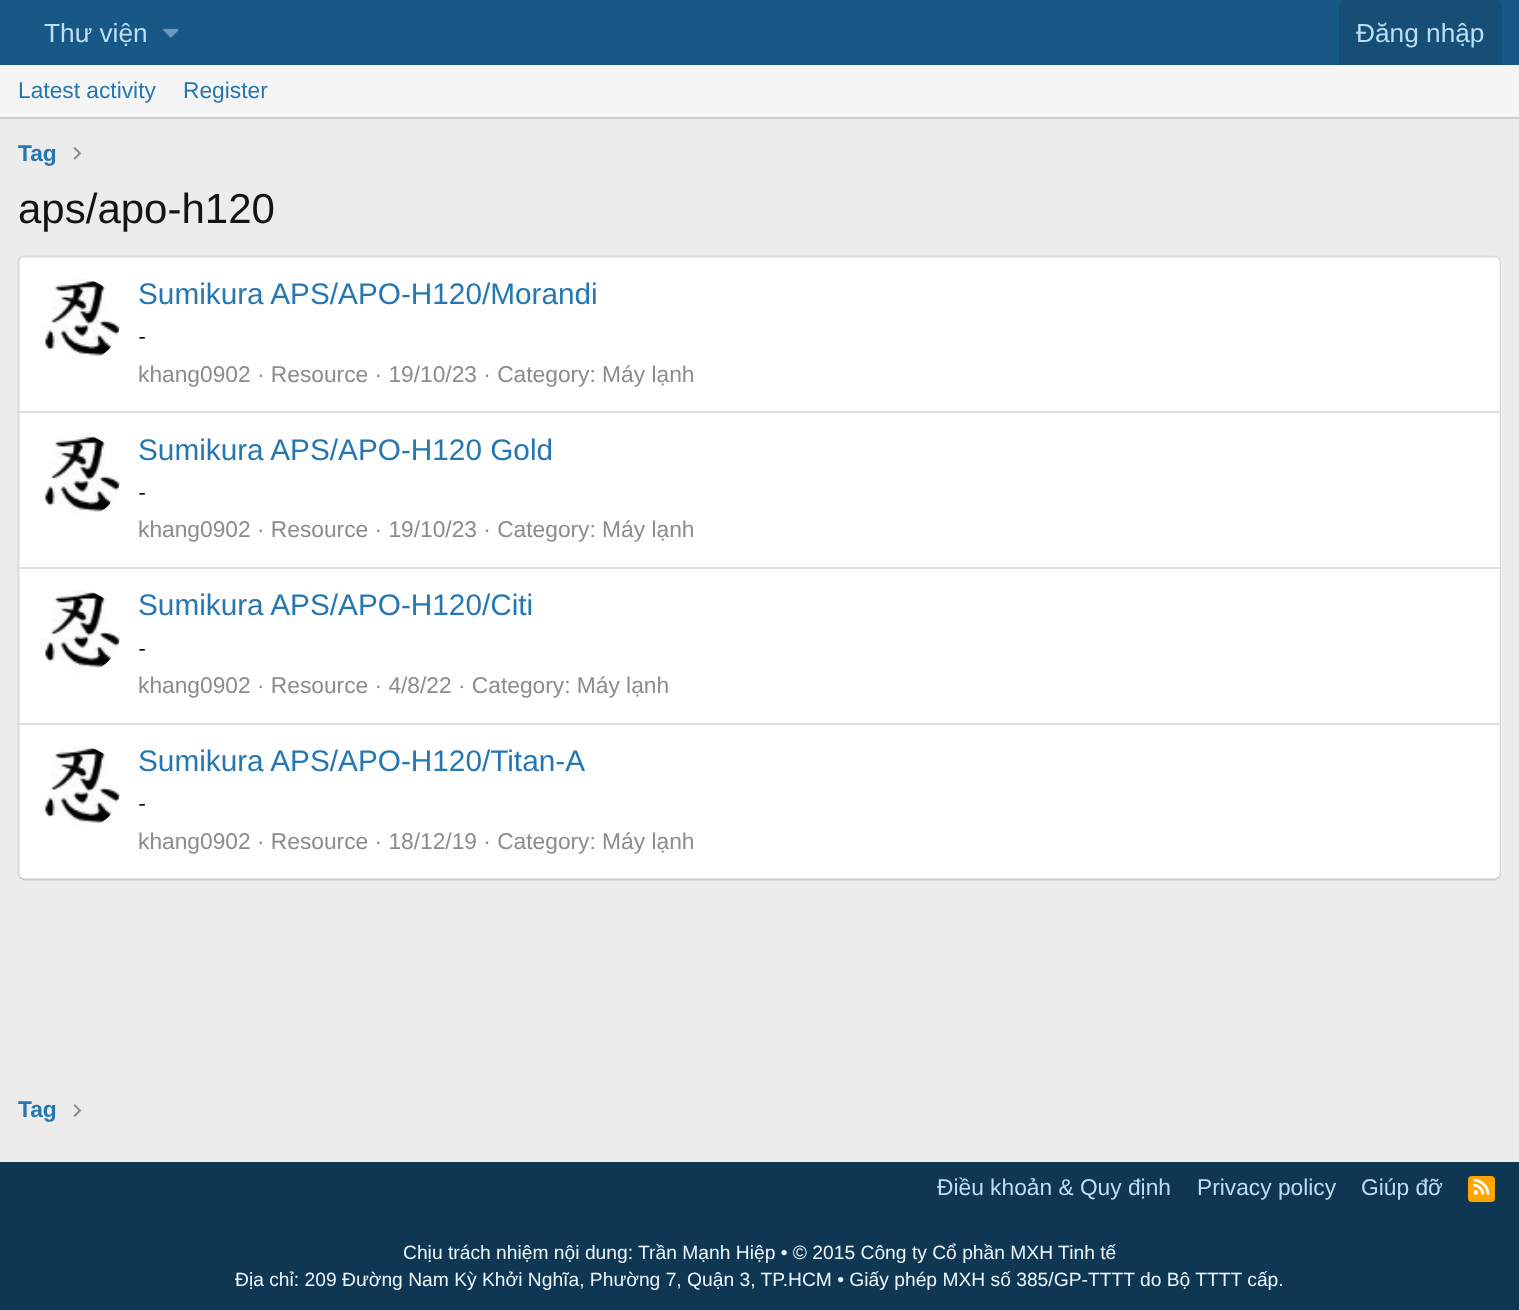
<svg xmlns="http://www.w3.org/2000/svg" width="1519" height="1310">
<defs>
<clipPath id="clip1"><rect x="18" y="137" width="38" height="35"/></clipPath>
<clipPath id="clip2"><rect x="18" y="1094" width="38" height="33"/></clipPath>
</defs>
<rect width="100%" height="100%" fill="#ececec"/>
<rect width="1519" height="65" fill="#185886"/>
<text x="44" y="42" style="font-family:Liberation Sans;font-size:26.25px;fill:#bcdef5">Thư viện</text>
<image x="163" y="28" width="16" height="10" href="media/1.png"/>
<path d="M1346 0h149c4 0 7 3 7 7v58h-163v-58c0-4 3-7 7-7z" fill="#174e75"/>
<text x="1356" y="42" style="font-family:Liberation Sans;font-size:26.25px;fill:#bcdef5">Đăng nhập</text>
<rect y="65" width="1519" height="52" fill="#f5f5f5"/>
<rect y="117" width="1519" height="2" fill="#cbcbcb"/>
<text x="18" y="98" style="font-family:Liberation Sans;font-size:22.75px;fill:#2577b1">Latest activity</text>
<text x="183" y="98" style="font-family:Liberation Sans;font-size:22.75px;fill:#2577b1">Register</text>
<g clip-path="url(#clip1)">
<text x="18" y="161" style="font-family:Liberation Sans;font-size:22.75px;font-weight:bold;fill:#2577b1">Tag</text>
</g>
<image x="73" y="147" width="9" height="13" href="media/2.png"/>
<text x="18" y="223" style="font-family:Liberation Sans;font-size:42px;fill:#141414">aps/apo-h120</text>
<rect x="18" y="256" width="1484" height="624" rx="7" fill="#fefefe"/>
<path d="M20 258c1.5-1 3-1.5 4.5-1.5h1470c1.5 0 3 .5 4.5 1.5" fill="none" stroke="#dfdfdf" stroke-width="1.8"/>
<path d="M1499 258c1 1.5 1.5 3 1.5 4.5v610.5c0 2-.5 3.5-1.5 4.5" fill="none" stroke="#d8d8d8" stroke-width="1.8"/>
<path d="M1499 877.5c-1.5 1-3 2-4.5 2h-1470c-1.5 0-3-1-4.5-2" fill="none" stroke="#cbcbcb" stroke-width="1.8"/>
<path d="M20 877.5c-1-1-1.5-2.5-1.5-4.5v-610.5c0-1.5 .5-3 1.5-4.5" fill="none" stroke="#d8d8d8" stroke-width="1.8"/>
<image x="42" y="279" width="78" height="81" href="media/3.png"/>
<text x="138" y="304" style="font-family:Liberation Sans;font-size:29.75px;fill:#2577b1">Sumikura APS/APO-H120/Morandi</text>
<text x="138" y="344" style="font-family:Liberation Sans;font-size:22.75px;font-style:italic;fill:#141414">-</text>
<text x="138" y="382" style="font-family:Liberation Sans;font-size:22.75px;fill:#8c8c8c">khang0902 · Resource · 19/10/23 · Category: Máy lạnh</text>
<rect x="19" y="411" width="1481" height="2" fill="#dfdfdf"/>
<image x="42" y="434" width="78" height="83" href="media/4.png"/>
<text x="138" y="460" style="font-family:Liberation Sans;font-size:29.75px;fill:#2577b1">Sumikura APS/APO-H120 Gold</text>
<text x="138" y="500" style="font-family:Liberation Sans;font-size:22.75px;font-style:italic;fill:#141414">-</text>
<text x="138" y="537" style="font-family:Liberation Sans;font-size:22.75px;fill:#8c8c8c">khang0902 · Resource · 19/10/23 · Category: Máy lạnh</text>
<rect x="19" y="567" width="1481" height="2" fill="#dfdfdf"/>
<image x="42" y="590" width="78" height="83" href="media/5.png"/>
<text x="138" y="615" style="font-family:Liberation Sans;font-size:29.75px;fill:#2577b1">Sumikura APS/APO-H120/Citi</text>
<text x="138" y="656" style="font-family:Liberation Sans;font-size:22.75px;font-style:italic;fill:#141414">-</text>
<text x="138" y="693" style="font-family:Liberation Sans;font-size:22.75px;fill:#8c8c8c">khang0902 · Resource · 4/8/22 · Category: Máy lạnh</text>
<rect x="19" y="723" width="1481" height="2" fill="#dfdfdf"/>
<image x="42" y="746" width="78" height="83" href="media/6.png"/>
<text x="138" y="771" style="font-family:Liberation Sans;font-size:29.75px;fill:#2577b1">Sumikura APS/APO-H120/Titan-A</text>
<text x="138" y="811" style="font-family:Liberation Sans;font-size:22.75px;font-style:italic;fill:#141414">-</text>
<text x="138" y="849" style="font-family:Liberation Sans;font-size:22.75px;fill:#8c8c8c">khang0902 · Resource · 18/12/19 · Category: Máy lạnh</text>
<g clip-path="url(#clip2)">
<text x="18" y="1117" style="font-family:Liberation Sans;font-size:22.75px;font-weight:bold;fill:#2577b1">Tag</text>
</g>
<image x="73" y="1104" width="9" height="13" href="media/7.png"/>
<rect y="1162" width="1519" height="148" fill="#0f3652"/>
<text x="937" y="1195" style="font-family:Liberation Sans;font-size:22.75px;fill:#bcdef5">Điều khoản &amp; Quy định</text>
<text x="1197" y="1195" style="font-family:Liberation Sans;font-size:22.75px;fill:#bcdef5">Privacy policy</text>
<text x="1361" y="1195" style="font-family:Liberation Sans;font-size:22.75px;fill:#bcdef5">Giúp đỡ</text>
<rect x="1468" y="1176" width="27" height="26" rx="4" fill="#ffa500"/>
<image x="1473" y="1178" width="17" height="17" href="media/8.png"/>
<text x="403" y="1259" style="font-family:Liberation Sans;font-size:19.25px;fill:#edf6fd">Chịu trách nhiệm nội dung: Trần Mạnh Hiệp • © 2015 Công ty Cổ phần MXH Tinh tế</text>
<text x="235" y="1286" style="font-family:Liberation Sans;font-size:19.25px;fill:#edf6fd">Địa chỉ: 209 Đường Nam Kỳ Khởi Nghĩa, Phường 7, Quận 3, TP.HCM • Giấy phép MXH số 385/GP-TTTT do Bộ TTTT cấp.</text>
</svg>
